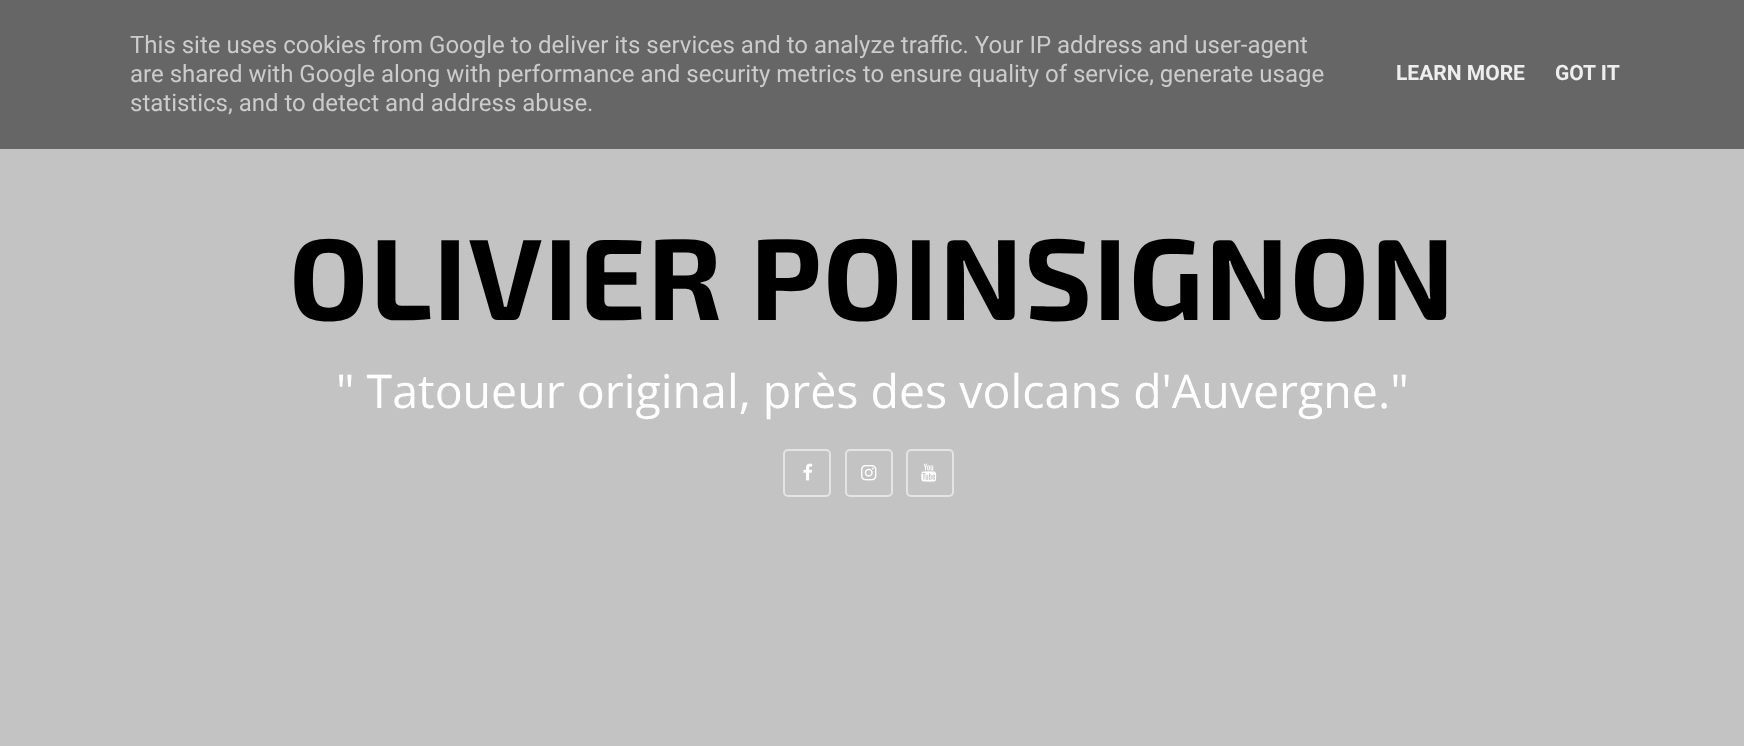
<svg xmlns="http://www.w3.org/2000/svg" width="1744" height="746">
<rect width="100%" height="100%" fill="#c3c3c3"/>
<rect width="1744" height="149" fill="#666"/>
<text x="130" y="53" style="font-family:Roboto;font-size:24px;fill:#ccc">This site uses cookies from Google to deliver its services and to analyze traffic. Your IP address and user-agent</text>
<text x="130" y="82" style="font-family:Roboto;font-size:24px;fill:#ccc">are shared with Google along with performance and security metrics to ensure quality of service, generate usage</text>
<text x="130" y="111" style="font-family:Roboto;font-size:24px;fill:#ccc">statistics, and to detect and address abuse.</text>
<text x="1396" y="80" style="font-family:Roboto;font-size:21px;font-weight:bold;fill:#eee">LEARN MORE</text>
<text x="1555" y="80" style="font-family:Roboto;font-size:21px;font-weight:bold;fill:#eee">GOT IT</text>
<text x="289" y="320" style="font-family:'Exo 2';font-size:115.5px;font-weight:bold;letter-spacing:1.5px;fill:#000">OLIVIER POINSIGNON</text>
<text x="336" y="408" style="font-family:Open Sans;font-size:46.5px;fill:#fff">" Tatoueur original, près des volcans d'Auvergne."</text>
<rect x="784" y="450" width="46" height="46" rx="4" fill="none" stroke="#e4e4e4" stroke-width="2"/>
<image x="803" y="463" width="10" height="18" href="media/1.png"/>
<rect x="846" y="450" width="46" height="46" rx="4" fill="none" stroke="#e4e4e4" stroke-width="2"/>
<image x="861" y="465" width="16" height="16" href="media/2.png"/>
<rect x="907" y="450" width="46" height="46" rx="4" fill="none" stroke="#e4e4e4" stroke-width="2"/>
<image x="921" y="463" width="16" height="19" href="media/3.png"/>
</svg>
